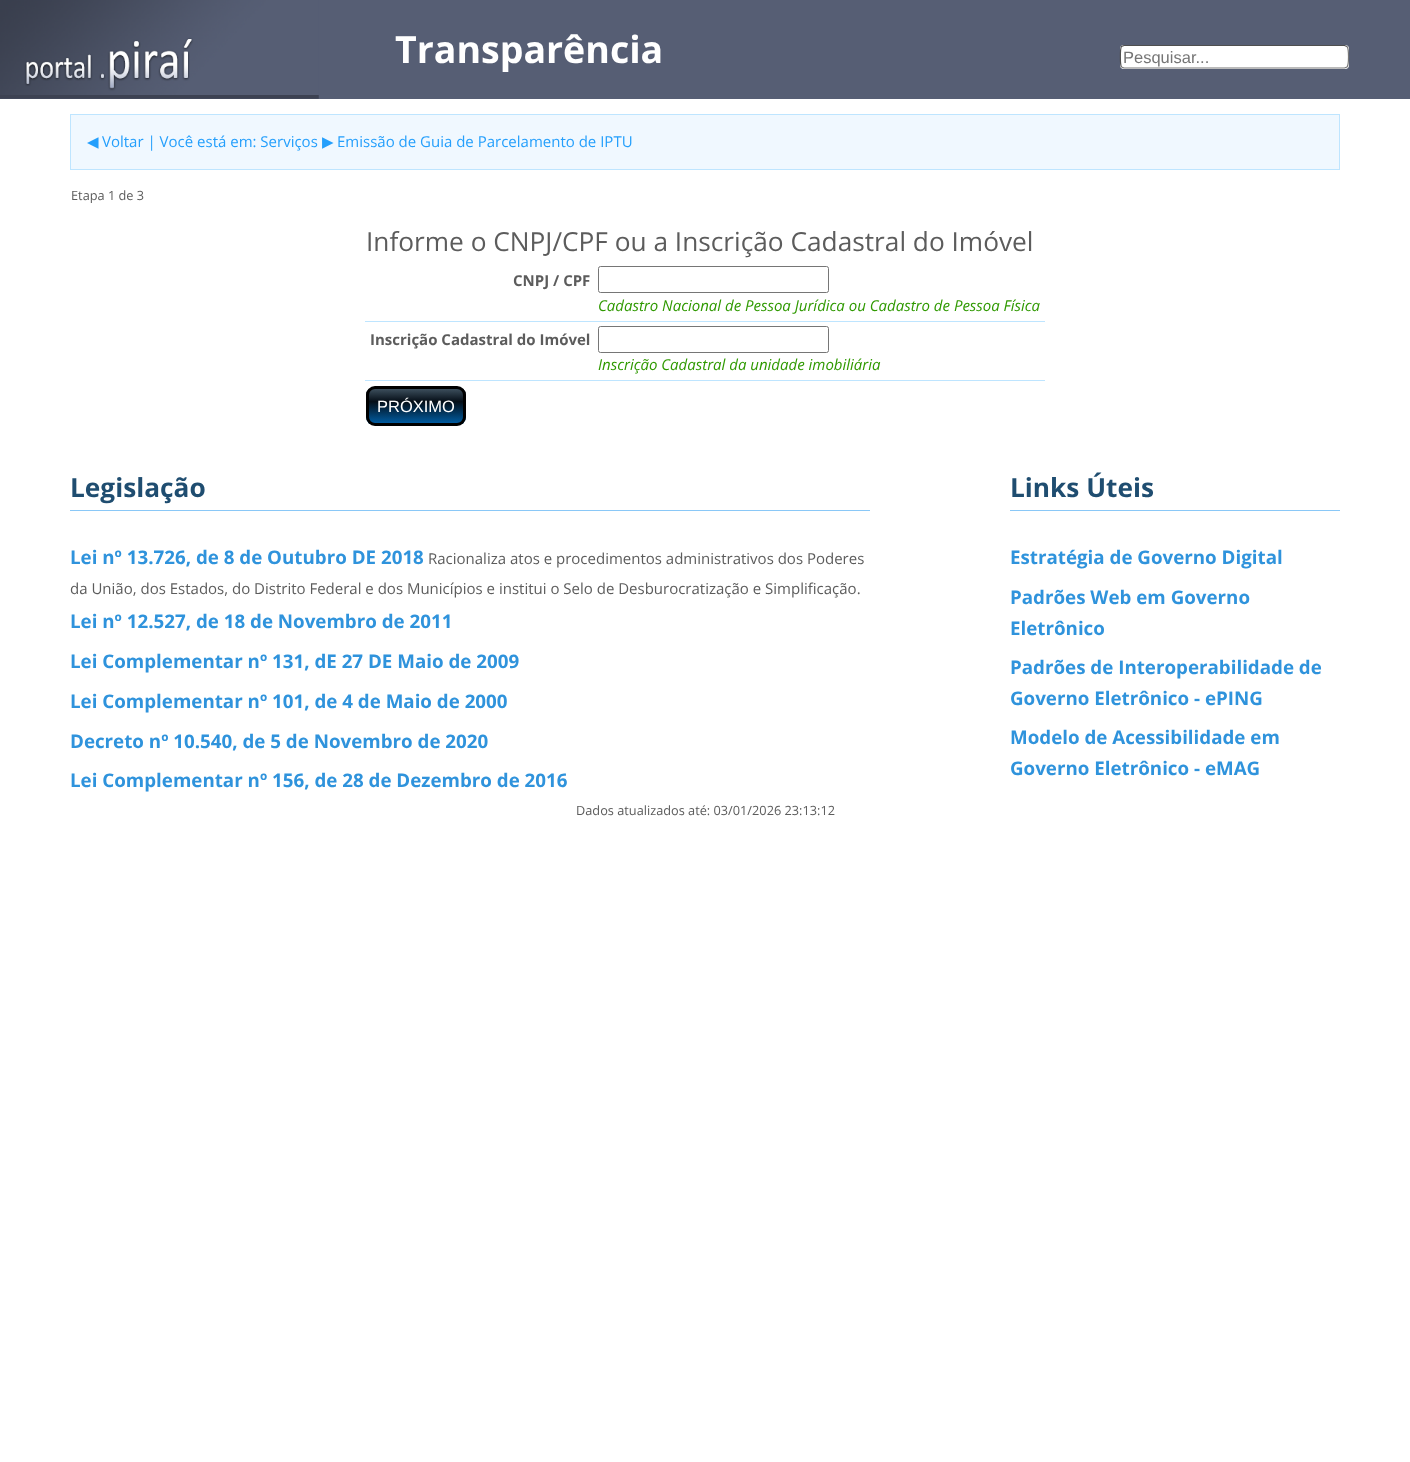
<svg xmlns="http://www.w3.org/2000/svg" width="1410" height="1462">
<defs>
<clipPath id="clip1"><rect x="366" y="386" width="100" height="40" rx="9"/></clipPath>
<linearGradient id="g1" gradientUnits="userSpaceOnUse" x1="416" y1="389" x2="416" y2="424"><stop offset="0" stop-color="#3c4e5c"/><stop offset="0.36" stop-color="#050e17"/><stop offset="1" stop-color="#005ea5"/></linearGradient>
</defs>
<rect width="100%" height="100%" fill="#fff"/>
<rect width="1410" height="99" fill="#565e74"/>
<image x="0" y="0" width="319" height="99" href="media/1.png"/>
<text x="395" y="63" style="font-family:Open Sans;font-size:37.5px;font-weight:bold;fill:#fff">Transparência</text>
<rect x="1120" y="45" width="229" height="24" rx="4" fill="#fff"/>
<path d="M1347 46.5c2 2 2 18.5 0 20.5l-2.5 1h-220.5l-2.5-1" fill="none" stroke="#767676" stroke-width="1.2"/>
<path d="M1121.5 67c-1.5-2-1.5-18.5 0-20.5l2.5-1h220.5l2.5 1" fill="none" stroke="#4f4f4f" stroke-width="1.2"/>
<text x="1123" y="63" style="font-family:Liberation Sans;font-size:16.5px;fill:#757575">Pesquisar...</text>
<rect x="70.5" y="114.5" width="1269" height="55" fill="#f0f8ff" stroke="#bee5ff"/>
<text x="87" y="147" style="font-family:DejaVu Sans;font-size:15px;fill:#249ffc">◀</text>
<text x="102" y="147" style="font-family:Open Sans;font-size:15px;fill:#249ffc">Voltar | Você está em: Serviços</text>
<text x="322" y="147" style="font-family:DejaVu Sans;font-size:15px;fill:#249ffc">▶</text>
<text x="337" y="147" style="font-family:Open Sans;font-size:15px;fill:#249ffc">Emissão de Guia de Parcelamento de IPTU</text>
<text x="71" y="200" style="font-family:Open Sans;font-size:12.75px;fill:#5c5c5c">Etapa 1 de 3</text>
<text x="366" y="251" style="font-family:Open Sans;font-size:26.25px;fill:#5c5c5c">Informe o CNPJ/CPF ou a Inscrição Cadastral do Imóvel</text>
<rect x="365" y="321" width="680" height="1" fill="#bee5ff"/>
<text x="513" y="286" style="font-family:Open Sans;font-size:15px;font-weight:bold;fill:#5c5c5c">CNPJ / CPF</text>
<rect x="598.5" y="266.5" width="230" height="26" rx="2" fill="none" stroke="#767676"/>
<text x="598" y="311" style="font-family:Open Sans;font-size:15px;font-style:italic;fill:#2f9900">Cadastro Nacional de Pessoa Jurídica ou Cadastro de Pessoa Física</text>
<rect x="365" y="380" width="680" height="1" fill="#bee5ff"/>
<text x="370" y="345" style="font-family:Open Sans;font-size:15px;font-weight:bold;fill:#5c5c5c">Inscrição Cadastral do Imóvel</text>
<rect x="598.5" y="326.5" width="230" height="26" rx="2" fill="none" stroke="#767676"/>
<text x="598" y="370" style="font-family:Open Sans;font-size:15px;font-style:italic;fill:#2f9900">Inscrição Cadastral da unidade imobiliária</text>
<g clip-path="url(#clip1)">
<rect x="366" y="389" width="100" height="35" fill="url(#g1)"/>
</g>
<rect x="367.5" y="387.5" width="97" height="37" rx="7.5" fill="none" stroke="#000" stroke-width="3"/>
<text x="377" y="412" style="font-family:Liberation Sans;font-size:16.5px;fill:#fff">PRÓXIMO</text>
<rect x="70" y="510" width="800" height="1" fill="#8ac8f7"/>
<text x="70" y="497" style="font-family:Open Sans;font-size:26.25px;font-weight:bold;fill:#1f4d70">Legislação</text>
<text x="70" y="564" style="font-family:Open Sans;font-size:18.75px;font-weight:bold;fill:#2f93dc">Lei nº 13.726, de 8 de Outubro DE 2018</text>
<text x="428" y="564" style="font-family:Open Sans;font-size:15px;fill:#5c5c5c">Racionaliza atos e procedimentos administrativos dos Poderes</text>
<text x="70" y="594" style="font-family:Open Sans;font-size:15px;fill:#5c5c5c">da União, dos Estados, do Distrito Federal e dos Municípios e institui o Selo de Desburocratização e Simplificação.</text>
<text x="70" y="628" style="font-family:Open Sans;font-size:18.75px;font-weight:bold;fill:#2f93dc">Lei nº 12.527, de 18 de Novembro de 2011</text>
<text x="70" y="668" style="font-family:Open Sans;font-size:18.75px;font-weight:bold;fill:#2f93dc">Lei Complementar nº 131, dE 27 DE Maio de 2009</text>
<text x="70" y="708" style="font-family:Open Sans;font-size:18.75px;font-weight:bold;fill:#2f93dc">Lei Complementar nº 101, de 4 de Maio de 2000</text>
<text x="70" y="748" style="font-family:Open Sans;font-size:18.75px;font-weight:bold;fill:#2f93dc">Decreto nº 10.540, de 5 de Novembro de 2020</text>
<text x="70" y="787" style="font-family:Open Sans;font-size:18.75px;font-weight:bold;fill:#2f93dc">Lei Complementar nº 156, de 28 de Dezembro de 2016</text>
<rect x="1010" y="510" width="330" height="1" fill="#8ac8f7"/>
<text x="1010" y="497" style="font-family:Open Sans;font-size:26.25px;font-weight:bold;fill:#1f4d70">Links Úteis</text>
<text x="1010" y="564" style="font-family:Open Sans;font-size:18.75px;font-weight:bold;fill:#2f93dc">Estratégia de Governo Digital</text>
<text x="1010" y="604" style="font-family:Open Sans;font-size:18.75px;font-weight:bold;fill:#2f93dc">Padrões Web em Governo</text>
<text x="1010" y="635" style="font-family:Open Sans;font-size:18.75px;font-weight:bold;fill:#2f93dc">Eletrônico</text>
<text x="1010" y="674" style="font-family:Open Sans;font-size:18.75px;font-weight:bold;fill:#2f93dc">Padrões de Interoperabilidade de</text>
<text x="1010" y="705" style="font-family:Open Sans;font-size:18.75px;font-weight:bold;fill:#2f93dc">Governo Eletrônico - ePING</text>
<text x="1010" y="744" style="font-family:Open Sans;font-size:18.75px;font-weight:bold;fill:#2f93dc">Modelo de Acessibilidade em</text>
<text x="1010" y="775" style="font-family:Open Sans;font-size:18.75px;font-weight:bold;fill:#2f93dc">Governo Eletrônico - eMAG</text>
<text x="576" y="815" style="font-family:Open Sans;font-size:12.75px;fill:#5c5c5c">Dados atualizados até: 03/01/2026 23:13:12</text>
</svg>
